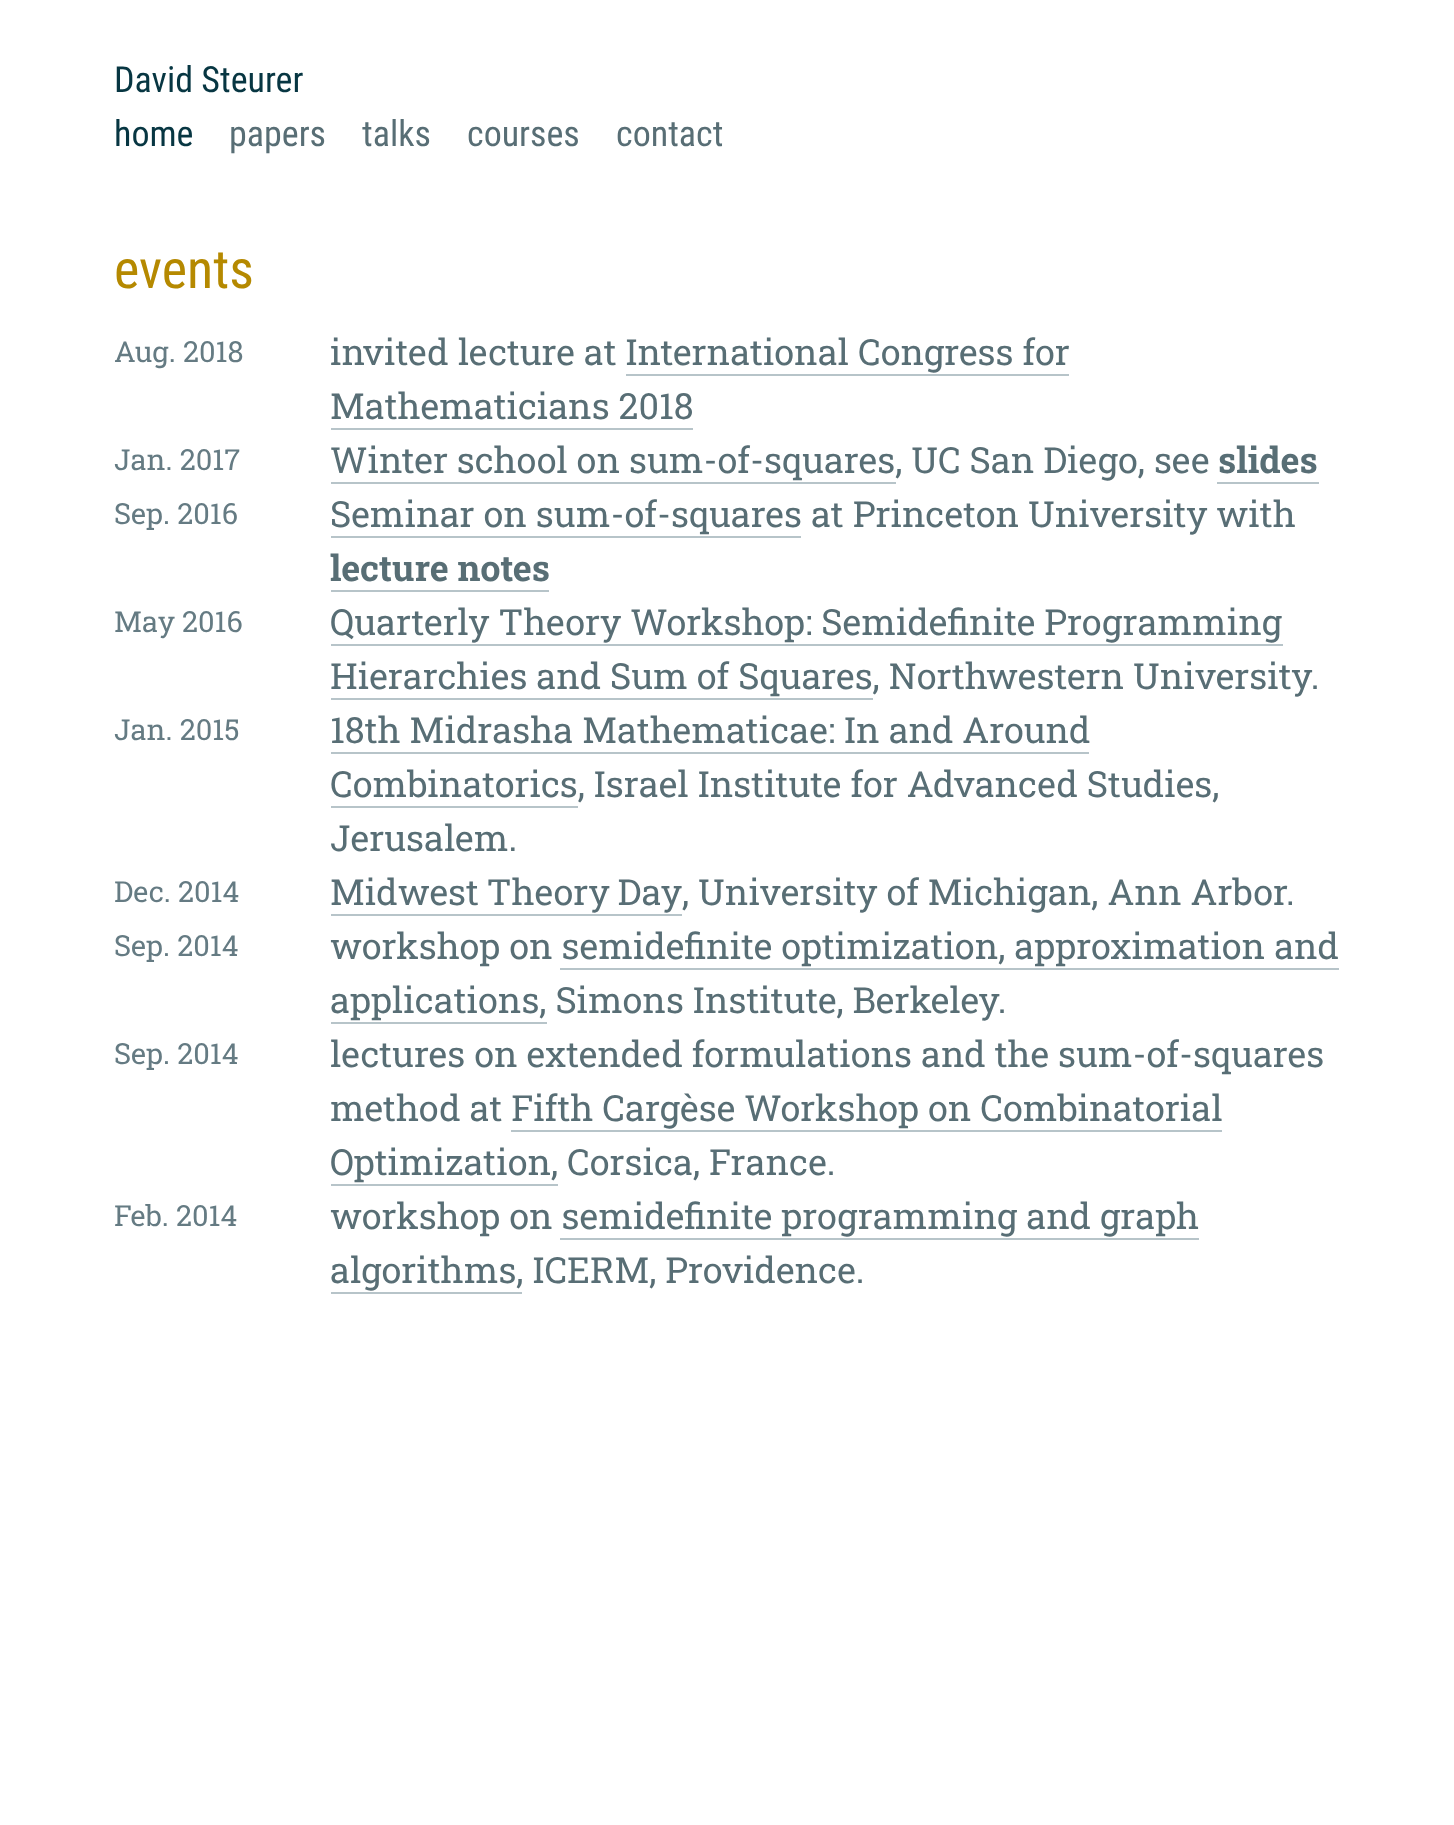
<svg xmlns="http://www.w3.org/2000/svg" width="1454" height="1825">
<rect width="100%" height="100%" fill="#fff"/>
<text x="114" y="92" style="font-family:Roboto Condensed;font-size:36px;fill:#073642">David Steurer</text>
<text x="114" y="146" style="font-family:Roboto Condensed;font-size:36px;fill:#073642">home</text>
<text x="229" y="146" style="font-family:Roboto Condensed;font-size:36px;fill:#586e75">papers</text>
<text x="362" y="146" style="font-family:Roboto Condensed;font-size:36px;fill:#586e75">talks</text>
<text x="467" y="146" style="font-family:Roboto Condensed;font-size:36px;fill:#586e75">courses</text>
<text x="616" y="146" style="font-family:Roboto Condensed;font-size:36px;fill:#586e75">contact</text>
<text x="114" y="288" style="font-family:Roboto Condensed;font-size:54px;fill:#b58900">events</text>
<text x="114" y="362" style="font-family:Roboto Slab;font-size:29px;fill:#657b83">Aug. 2018</text>
<text x="330" y="365" style="font-family:Roboto Slab;font-size:36px;fill:#586e75">invited lecture at International Congress for</text>
<text x="330" y="419" style="font-family:Roboto Slab;font-size:36px;fill:#586e75">Mathematicians 2018</text>
<rect x="626" y="374" width="443" height="2" fill="#b7c4c9"/>
<rect x="331" y="428" width="362" height="2" fill="#b7c4c9"/>
<text x="114" y="470" style="font-family:Roboto Slab;font-size:29px;fill:#657b83">Jan. 2017</text>
<text x="330" y="473" style="font-family:Roboto Slab;font-size:36px;fill:#586e75">Winter school on sum-of-squares, UC San Diego, see</text>
<rect x="331" y="482" width="565" height="2" fill="#b7c4c9"/>
<text x="1218" y="473" style="font-family:Roboto Slab;font-size:36px;font-weight:bold;fill:#586e75">slides</text>
<rect x="1217" y="482" width="102" height="2" fill="#b7c4c9"/>
<text x="114" y="524" style="font-family:Roboto Slab;font-size:29px;fill:#657b83">Sep. 2016</text>
<text x="330" y="527" style="font-family:Roboto Slab;font-size:36px;fill:#586e75">Seminar on sum-of-squares at Princeton University with</text>
<rect x="331" y="536" width="470" height="2" fill="#b7c4c9"/>
<text x="330" y="581" style="font-family:Roboto Slab;font-size:36px;font-weight:bold;fill:#586e75">lecture notes</text>
<rect x="331" y="590" width="218" height="2" fill="#b7c4c9"/>
<text x="114" y="632" style="font-family:Roboto Slab;font-size:29px;fill:#657b83">May 2016</text>
<text x="330" y="635" style="font-family:Roboto Slab;font-size:36px;fill:#586e75">Quarterly Theory Workshop: Semidefinite Programming</text>
<rect x="331" y="644" width="952" height="2" fill="#b7c4c9"/>
<text x="330" y="689" style="font-family:Roboto Slab;font-size:36px;fill:#586e75">Hierarchies and Sum of Squares, Northwestern University.</text>
<rect x="331" y="698" width="542" height="2" fill="#b7c4c9"/>
<text x="114" y="740" style="font-family:Roboto Slab;font-size:29px;fill:#657b83">Jan. 2015</text>
<text x="330" y="743" style="font-family:Roboto Slab;font-size:36px;fill:#586e75">18th Midrasha Mathematicae: In and Around</text>
<rect x="331" y="752" width="758" height="2" fill="#b7c4c9"/>
<text x="330" y="797" style="font-family:Roboto Slab;font-size:36px;fill:#586e75">Combinatorics, Israel Institute for Advanced Studies,</text>
<rect x="331" y="806" width="247" height="2" fill="#b7c4c9"/>
<text x="330" y="851" style="font-family:Roboto Slab;font-size:36px;fill:#586e75">Jerusalem.</text>
<text x="114" y="902" style="font-family:Roboto Slab;font-size:29px;fill:#657b83">Dec. 2014</text>
<text x="330" y="905" word-spacing="-1" style="font-family:Roboto Slab;font-size:36px;fill:#586e75">Midwest Theory Day</text>
<rect x="331" y="914" width="351" height="2" fill="#b7c4c9"/>
<text x="682" y="905" style="font-family:Roboto Slab;font-size:36px;fill:#586e75">, University of Michigan, Ann Arbor.</text>
<text x="114" y="956" style="font-family:Roboto Slab;font-size:29px;fill:#657b83">Sep. 2014</text>
<text x="330" y="959" style="font-family:Roboto Slab;font-size:36px;fill:#586e75">workshop on semidefinite optimization, approximation and</text>
<text x="330" y="1013" style="font-family:Roboto Slab;font-size:36px;fill:#586e75">applications, Simons Institute, Berkeley.</text>
<rect x="560" y="968" width="779" height="2" fill="#b7c4c9"/>
<rect x="331" y="1022" width="216" height="2" fill="#b7c4c9"/>
<text x="114" y="1064" style="font-family:Roboto Slab;font-size:29px;fill:#657b83">Sep. 2014</text>
<text x="330" y="1067" style="font-family:Roboto Slab;font-size:36px;fill:#586e75">lectures on extended formulations and the sum-of-squares</text>
<text x="330" y="1121" style="font-family:Roboto Slab;font-size:36px;fill:#586e75">method at Fifth Cargèse Workshop on Combinatorial</text>
<text x="330" y="1175" style="font-family:Roboto Slab;font-size:36px;fill:#586e75">Optimization, Corsica, France.</text>
<rect x="511" y="1130" width="711" height="2" fill="#b7c4c9"/>
<rect x="331" y="1184" width="227" height="2" fill="#b7c4c9"/>
<text x="114" y="1226" style="font-family:Roboto Slab;font-size:29px;fill:#657b83">Feb. 2014</text>
<text x="330" y="1229" style="font-family:Roboto Slab;font-size:36px;fill:#586e75">workshop on semidefinite programming and graph</text>
<text x="330" y="1283" style="font-family:Roboto Slab;font-size:36px;fill:#586e75">algorithms, ICERM, Providence.</text>
<rect x="560" y="1238" width="639" height="2" fill="#b7c4c9"/>
<rect x="331" y="1292" width="191" height="2" fill="#b7c4c9"/>
</svg>
